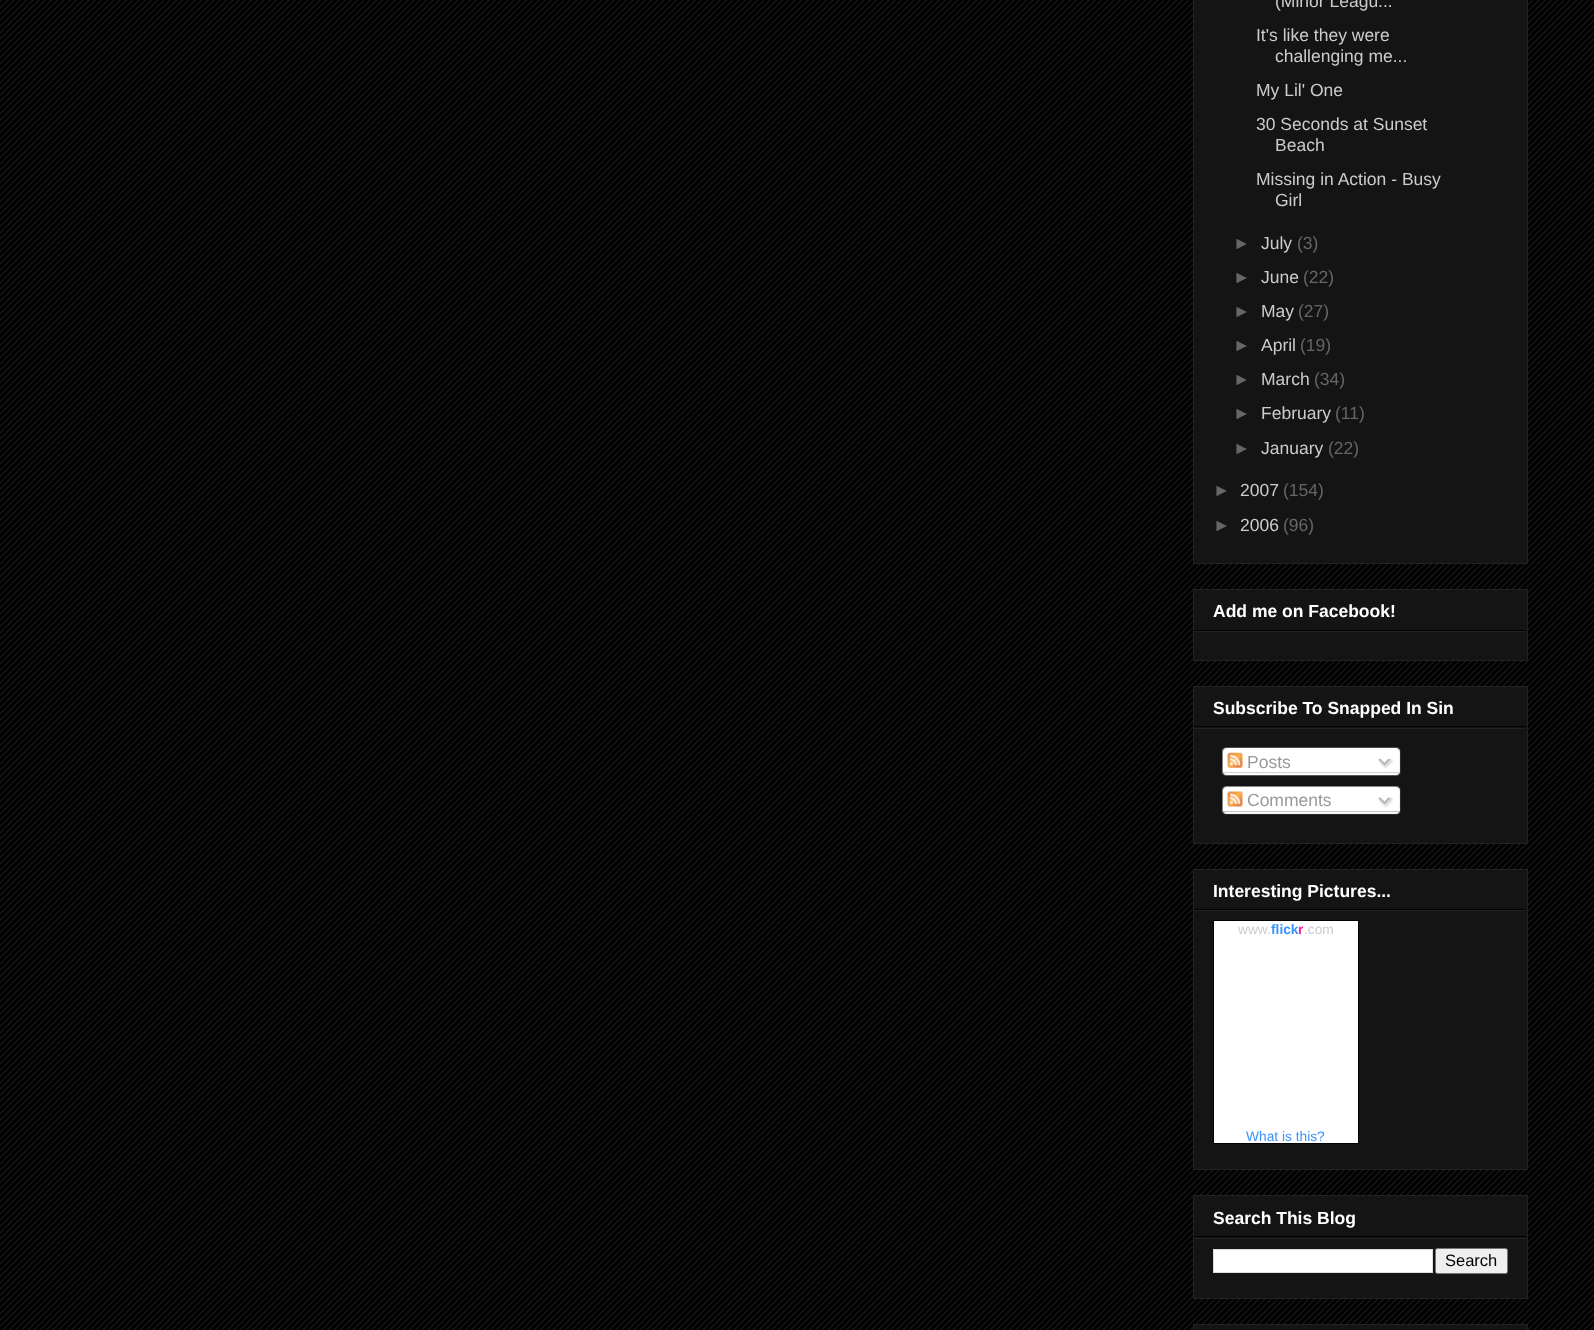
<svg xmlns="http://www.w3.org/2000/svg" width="1594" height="1330">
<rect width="100%" height="100%" fill="#000"/>
<image x="0" y="0" width="1594" height="1330" href="media/1.png"/>
<rect x="1193.5" y="-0.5" width="334" height="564" fill="#141414" stroke="#222"/>
<text x="1275" y="7" style="font-family:Liberation Sans;font-size:17.5px;fill:#ccc">(Minor Leagu...</text>
<text x="1256" y="41" style="font-family:Liberation Sans;font-size:17.5px;fill:#ccc">It's like they were</text>
<text x="1275" y="62" style="font-family:Liberation Sans;font-size:17.5px;fill:#ccc">challenging me...</text>
<text x="1256" y="96" style="font-family:Liberation Sans;font-size:17.5px;fill:#ccc">My Lil' One</text>
<text x="1256" y="130" style="font-family:Liberation Sans;font-size:17.5px;fill:#ccc">30 Seconds at Sunset</text>
<text x="1275" y="151" style="font-family:Liberation Sans;font-size:17.5px;fill:#ccc">Beach</text>
<text x="1256" y="185" style="font-family:Liberation Sans;font-size:17.5px;fill:#ccc">Missing in Action - Busy</text>
<text x="1275" y="206" style="font-family:Liberation Sans;font-size:17.5px;fill:#ccc">Girl</text>
<text x="1233" y="249" style="font-family:Liberation Sans;font-size:17.5px;fill:#666">►</text>
<text x="1261" y="249" style="font-family:Liberation Sans;font-size:17.5px;fill:#ccc">July</text>
<text x="1297" y="249" style="font-family:Liberation Sans;font-size:17.5px;fill:#666">(3)</text>
<text x="1233" y="283" style="font-family:Liberation Sans;font-size:17.5px;fill:#666">►</text>
<text x="1261" y="283" style="font-family:Liberation Sans;font-size:17.5px;fill:#ccc">June</text>
<text x="1303" y="283" style="font-family:Liberation Sans;font-size:17.5px;fill:#666">(22)</text>
<text x="1233" y="317" style="font-family:Liberation Sans;font-size:17.5px;fill:#666">►</text>
<text x="1261" y="317" style="font-family:Liberation Sans;font-size:17.5px;fill:#ccc">May</text>
<text x="1298" y="317" style="font-family:Liberation Sans;font-size:17.5px;fill:#666">(27)</text>
<text x="1233" y="351" style="font-family:Liberation Sans;font-size:17.5px;fill:#666">►</text>
<text x="1261" y="351" style="font-family:Liberation Sans;font-size:17.5px;fill:#ccc">April</text>
<text x="1300" y="351" style="font-family:Liberation Sans;font-size:17.5px;fill:#666">(19)</text>
<text x="1233" y="385" style="font-family:Liberation Sans;font-size:17.5px;fill:#666">►</text>
<text x="1261" y="385" style="font-family:Liberation Sans;font-size:17.5px;fill:#ccc">March</text>
<text x="1314" y="385" style="font-family:Liberation Sans;font-size:17.5px;fill:#666">(34)</text>
<text x="1233" y="419" style="font-family:Liberation Sans;font-size:17.5px;fill:#666">►</text>
<text x="1261" y="419" style="font-family:Liberation Sans;font-size:17.5px;fill:#ccc">February</text>
<text x="1335" y="419" style="font-family:Liberation Sans;font-size:17.5px;fill:#666">(11)</text>
<text x="1233" y="454" style="font-family:Liberation Sans;font-size:17.5px;fill:#666">►</text>
<text x="1261" y="454" style="font-family:Liberation Sans;font-size:17.5px;fill:#ccc">January</text>
<text x="1328" y="454" style="font-family:Liberation Sans;font-size:17.5px;fill:#666">(22)</text>
<text x="1213" y="496" style="font-family:Liberation Sans;font-size:17.5px;fill:#666">►</text>
<text x="1240" y="496" style="font-family:Liberation Sans;font-size:17.5px;fill:#ccc">2007</text>
<text x="1283" y="496" style="font-family:Liberation Sans;font-size:17.5px;fill:#666">(154)</text>
<text x="1213" y="531" style="font-family:Liberation Sans;font-size:17.5px;fill:#666">►</text>
<text x="1240" y="531" style="font-family:Liberation Sans;font-size:17.5px;fill:#ccc">2006</text>
<text x="1283" y="531" style="font-family:Liberation Sans;font-size:17.5px;fill:#666">(96)</text>
<rect x="1193.5" y="589.5" width="334" height="71" fill="#141414" stroke="#222"/>
<rect x="1194" y="630" width="332" height="1" fill="#000"/>
<text x="1213" y="617" style="font-family:Liberation Sans;font-size:17.5px;font-weight:bold;fill:#fff">Add me on Facebook!</text>
<rect x="1194" y="631" width="332" height="1" fill="#222"/>
<rect x="1193.5" y="686.5" width="334" height="157" fill="#141414" stroke="#222"/>
<rect x="1194" y="726" width="332" height="1" fill="#000"/>
<text x="1213" y="714" style="font-family:Liberation Sans;font-size:17.5px;font-weight:bold;fill:#fff">Subscribe To Snapped In Sin</text>
<rect x="1194" y="728" width="332" height="1" fill="#222"/>
<image x="1222" y="747" width="179" height="26" href="media/2.png"/>
<image x="1227" y="752" width="16" height="16" href="media/3.png"/>
<text x="1247" y="768" style="font-family:Liberation Sans;font-size:17.5px;fill:#999">Posts</text>
<image x="1377" y="758" width="17" height="11" href="media/4.png"/>
<image x="1222" y="772" width="179" height="4" href="media/5.png"/>
<image x="1222" y="786" width="179" height="26" href="media/6.png"/>
<image x="1227" y="791" width="16" height="16" href="media/7.png"/>
<text x="1247" y="806" style="font-family:Liberation Sans;font-size:17.5px;fill:#999">Comments</text>
<image x="1377" y="797" width="17" height="11" href="media/8.png"/>
<image x="1222" y="811" width="179" height="4" href="media/9.png"/>
<rect x="1193.5" y="869.5" width="334" height="300" fill="#141414" stroke="#222"/>
<rect x="1194" y="909" width="332" height="1" fill="#000"/>
<text x="1213" y="897" style="font-family:Liberation Sans;font-size:17.5px;font-weight:bold;fill:#fff">Interesting Pictures...</text>
<rect x="1194" y="910" width="332" height="1" fill="#222"/>
<rect x="1213.5" y="920.5" width="145" height="223" fill="#fff" stroke="#000"/>
<text x="1238" y="934" style="font-family:Liberation Sans;font-size:13.75px;fill:#ccc">www.</text>
<text x="1271" y="934" style="font-family:Liberation Sans;font-size:13.75px;font-weight:bold;fill:#3993ff">flick</text>
<text x="1298" y="934" style="font-family:Liberation Sans;font-size:13.75px;font-weight:bold;fill:#ff1c92">r</text>
<text x="1304" y="934" style="font-family:Liberation Sans;font-size:13.75px;fill:#ccc">.com</text>
<text x="1246" y="1141" style="font-family:Liberation Sans;font-size:13.75px;fill:#3993ff">What is this?</text>
<rect x="1193.5" y="1195.5" width="334" height="103" fill="#141414" stroke="#222"/>
<rect x="1194" y="1236" width="332" height="1" fill="#000"/>
<text x="1213" y="1224" style="font-family:Liberation Sans;font-size:17.5px;font-weight:bold;fill:#fff">Search This Blog</text>
<rect x="1194" y="1238" width="332" height="1" fill="#222"/>
<rect x="1213.5" y="1249.5" width="219" height="23" fill="#fff" stroke="#ddd"/>
<rect x="1435.5" y="1248.5" width="72" height="25" rx="2" fill="#efefef" stroke="#767676"/>
<text x="1445" y="1266" style="font-family:Liberation Sans;font-size:16.5px;fill:#000">Search</text>
<rect x="1193.5" y="1324.5" width="334" height="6" fill="#141414" stroke="#222"/>
</svg>
